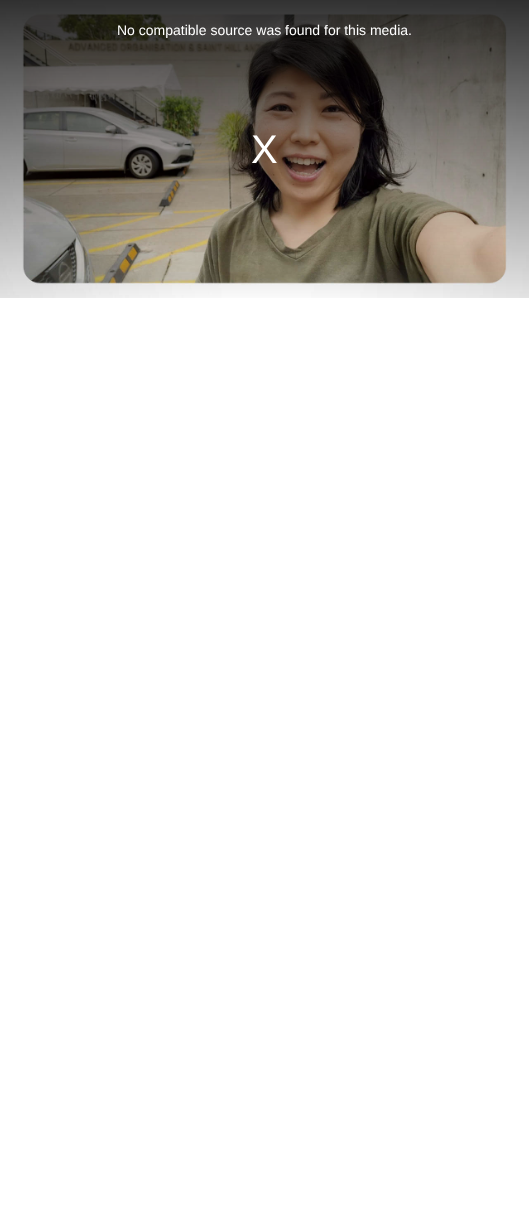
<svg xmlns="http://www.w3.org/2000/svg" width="529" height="1219">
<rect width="100%" height="100%" fill="#fff"/>
<image x="0" y="0" width="529" height="298" href="media/1.png"/>
<text x="117" y="35" style="font-family:Liberation Sans;font-size:14px;fill:#fff">No compatible source was found for this media.</text>
<text x="251" y="163" style="font-family:Liberation Sans;font-size:40px;fill:#fff">X</text>
</svg>
